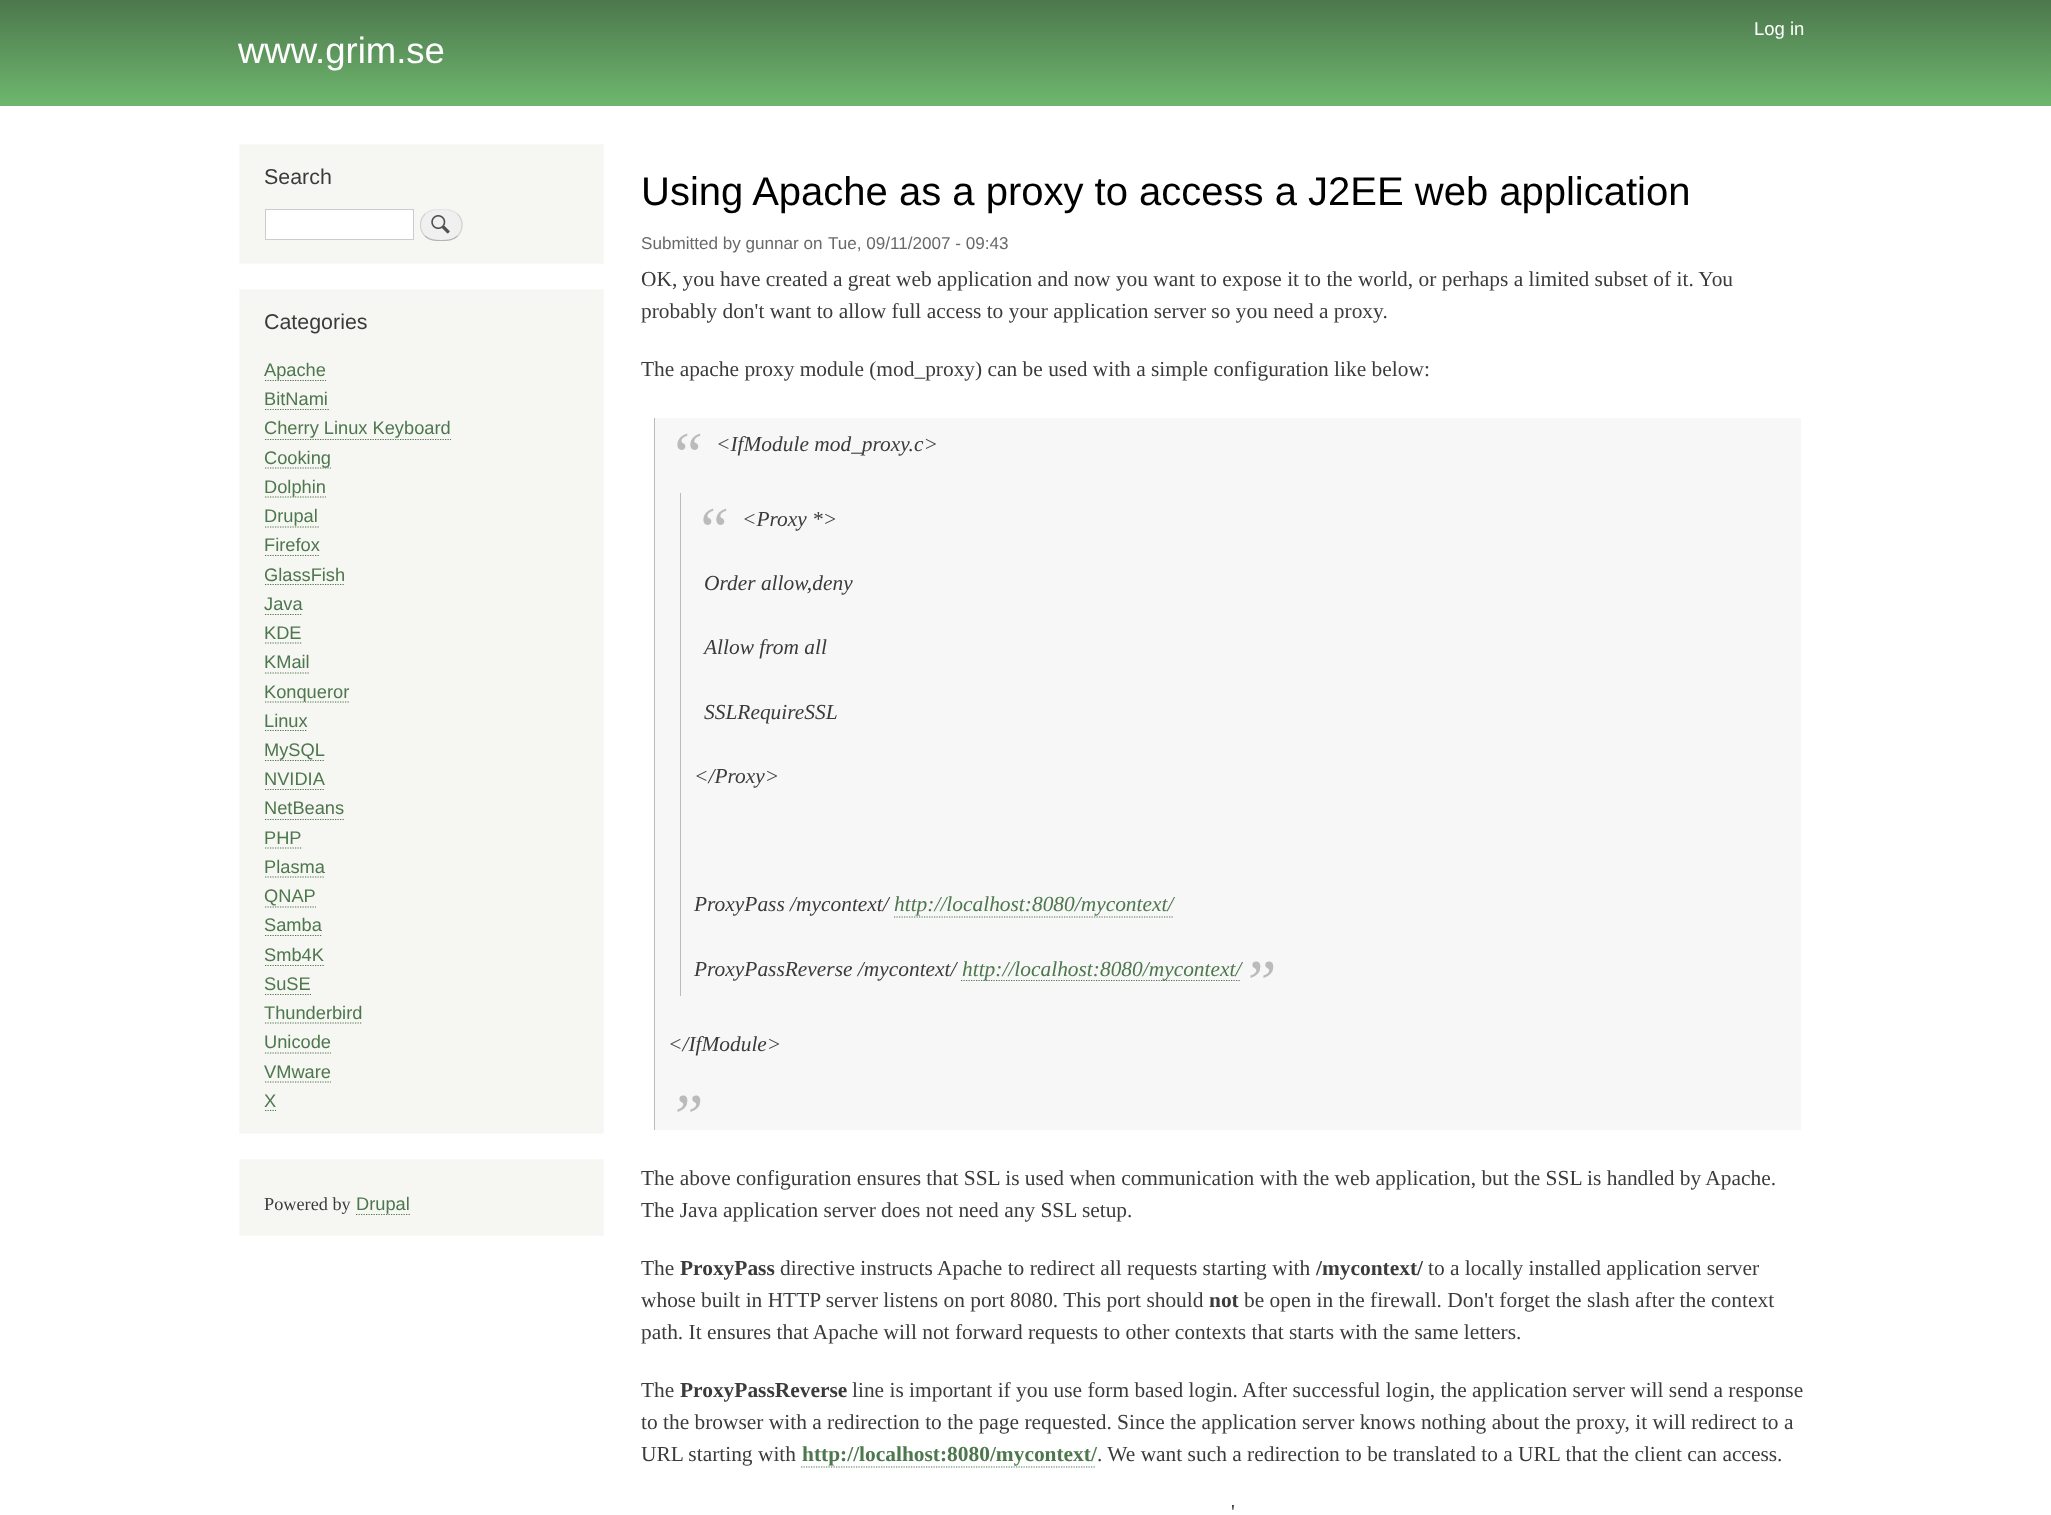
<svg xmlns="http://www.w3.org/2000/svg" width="2051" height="1515">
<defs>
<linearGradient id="g1" gradientUnits="userSpaceOnUse" x1="1026" y1="0" x2="1026" y2="106"><stop offset="0" stop-color="#4d774d"/><stop offset="1" stop-color="#6eb76e"/></linearGradient>
</defs>
<rect width="100%" height="100%" fill="#fff"/>
<rect width="2051" height="106" fill="url(#g1)"/>
<text x="1754" y="35" style="font-family:Liberation Sans;font-size:18.5px;fill:#fffeff">Log in</text>
<text x="238" y="63" style="font-family:Liberation Sans;font-size:36.5px;fill:#fffeff">www.grim.se</text>
<rect x="239.5" y="144.5" width="364" height="119" fill="#f6f6f2" stroke="#f9f9f9"/>
<text x="264" y="184" style="font-family:Liberation Sans;font-size:21.42px;fill:#3b3b3b">Search</text>
<rect x="265.5" y="209.5" width="148" height="30" fill="#fff" stroke="#ccc"/>
<rect x="420" y="209" width="43" height="32" rx="16" fill="#f0f0f0"/>
<image x="431" y="215" width="19" height="19" href="media/1.png"/>
<path d="M425 214c4.5-4.5 10.5-4.5 16-4.5c6 0 12 0 16.5 4.5" fill="none" stroke="#e4e4e4" stroke-width="1.2"/>
<path d="M457.5 214c6 6 6 16 0 22" fill="none" stroke="#d2d2d2" stroke-width="1.2"/>
<path d="M457.5 236c-4.5 4.5-10.5 4.5-16.5 4.5c-5.5 0-11.5 0-16-4.5" fill="none" stroke="#b4b4b4" stroke-width="1.2"/>
<path d="M425 236c-6-6-6-16 0-22" fill="none" stroke="#d2d2d2" stroke-width="1.2"/>
<rect x="239.5" y="289.5" width="364" height="844" fill="#f6f6f2" stroke="#f9f9f9"/>
<text x="264" y="329" style="font-family:Liberation Sans;font-size:21.42px;fill:#3b3b3b">Categories</text>
<path d="M265 380.5h61" fill="none" stroke="#4d774d" stroke-width="1.2" stroke-dasharray="1.25 1.25"/>
<text x="264" y="376" style="font-family:Liberation Sans;font-size:18.25px;fill:#4d774d">Apache</text>
<text x="264" y="405" style="font-family:Liberation Sans;font-size:18.25px;fill:#4d774d">BitNami</text>
<path d="M265 409.5h64" fill="none" stroke="#4d774d" stroke-width="1.2" stroke-dasharray="1.25 1.25"/>
<text x="264" y="434" style="font-family:Liberation Sans;font-size:18.25px;fill:#4d774d">Cherry Linux Keyboard</text>
<path d="M265 439.5h186" fill="none" stroke="#4d774d" stroke-width="1.2" stroke-dasharray="1.25 1.25"/>
<path d="M265 468h66" fill="none" stroke="#4d774d" stroke-width="1.2" stroke-dasharray="1.25 1.25"/>
<text x="264" y="464" style="font-family:Liberation Sans;font-size:18.25px;fill:#4d774d">Cooking</text>
<path d="M265 497h61" fill="none" stroke="#4d774d" stroke-width="1.2" stroke-dasharray="1.25 1.25"/>
<text x="264" y="493" style="font-family:Liberation Sans;font-size:18.25px;fill:#4d774d">Dolphin</text>
<text x="264" y="522" style="font-family:Liberation Sans;font-size:18.25px;fill:#4d774d">Drupal</text>
<path d="M265 527h54" fill="none" stroke="#4d774d" stroke-width="1.2" stroke-dasharray="1.25 1.25"/>
<text x="264" y="551" style="font-family:Liberation Sans;font-size:18.25px;fill:#4d774d">Firefox</text>
<path d="M265 555.5h55" fill="none" stroke="#4d774d" stroke-width="1.2" stroke-dasharray="1.25 1.25"/>
<text x="264" y="581" style="font-family:Liberation Sans;font-size:18.25px;fill:#4d774d">GlassFish</text>
<path d="M265 584.5h80" fill="none" stroke="#4d774d" stroke-width="1.2" stroke-dasharray="1.25 1.25"/>
<text x="264" y="610" style="font-family:Liberation Sans;font-size:18.25px;fill:#4d774d">Java</text>
<path d="M265 614.5h37.5" fill="none" stroke="#4d774d" stroke-width="1.2" stroke-dasharray="1.25 1.25"/>
<text x="264" y="639" style="font-family:Liberation Sans;font-size:18.25px;fill:#4d774d">KDE</text>
<path d="M265 643h37.5" fill="none" stroke="#4d774d" stroke-width="1.2" stroke-dasharray="1.25 1.25"/>
<text x="264" y="668" style="font-family:Liberation Sans;font-size:18.25px;fill:#4d774d">KMail</text>
<path d="M265 673h45" fill="none" stroke="#4d774d" stroke-width="1.2" stroke-dasharray="1.25 1.25"/>
<path d="M265 702h85" fill="none" stroke="#4d774d" stroke-width="1.2" stroke-dasharray="1.25 1.25"/>
<text x="264" y="698" style="font-family:Liberation Sans;font-size:18.25px;fill:#4d774d">Konqueror</text>
<text x="264" y="727" style="font-family:Liberation Sans;font-size:18.25px;fill:#4d774d">Linux</text>
<path d="M265 730.5h42.5" fill="none" stroke="#4d774d" stroke-width="1.2" stroke-dasharray="1.25 1.25"/>
<path d="M265 760.5h60" fill="none" stroke="#4d774d" stroke-width="1.2" stroke-dasharray="1.25 1.25"/>
<text x="264" y="756" style="font-family:Liberation Sans;font-size:18.25px;fill:#4d774d">MySQL</text>
<text x="264" y="785" style="font-family:Liberation Sans;font-size:18.25px;fill:#4d774d">NVIDIA</text>
<path d="M265 789.5h60" fill="none" stroke="#4d774d" stroke-width="1.2" stroke-dasharray="1.25 1.25"/>
<text x="264" y="814" style="font-family:Liberation Sans;font-size:18.25px;fill:#4d774d">NetBeans</text>
<path d="M265 819.5h80" fill="none" stroke="#4d774d" stroke-width="1.2" stroke-dasharray="1.25 1.25"/>
<text x="264" y="844" style="font-family:Liberation Sans;font-size:18.25px;fill:#4d774d">PHP</text>
<path d="M265 848h37.5" fill="none" stroke="#4d774d" stroke-width="1.2" stroke-dasharray="1.25 1.25"/>
<text x="264" y="873" style="font-family:Liberation Sans;font-size:18.25px;fill:#4d774d">Plasma</text>
<path d="M265 877h60" fill="none" stroke="#4d774d" stroke-width="1.2" stroke-dasharray="1.25 1.25"/>
<text x="264" y="902" style="font-family:Liberation Sans;font-size:18.25px;fill:#4d774d">QNAP</text>
<path d="M265 907h51" fill="none" stroke="#4d774d" stroke-width="1.2" stroke-dasharray="1.25 1.25"/>
<text x="264" y="931" style="font-family:Liberation Sans;font-size:18.25px;fill:#4d774d">Samba</text>
<path d="M265 935.5h57.5" fill="none" stroke="#4d774d" stroke-width="1.2" stroke-dasharray="1.25 1.25"/>
<text x="264" y="961" style="font-family:Liberation Sans;font-size:18.25px;fill:#4d774d">Smb4K</text>
<path d="M265 965.5h59" fill="none" stroke="#4d774d" stroke-width="1.2" stroke-dasharray="1.25 1.25"/>
<text x="264" y="990" style="font-family:Liberation Sans;font-size:18.25px;fill:#4d774d">SuSE</text>
<path d="M265 994.5h46" fill="none" stroke="#4d774d" stroke-width="1.2" stroke-dasharray="1.25 1.25"/>
<text x="264" y="1019" style="font-family:Liberation Sans;font-size:18.25px;fill:#4d774d">Thunderbird</text>
<path d="M265 1023h97.5" fill="none" stroke="#4d774d" stroke-width="1.2" stroke-dasharray="1.25 1.25"/>
<text x="264" y="1048" style="font-family:Liberation Sans;font-size:18.25px;fill:#4d774d">Unicode</text>
<path d="M265 1053h66" fill="none" stroke="#4d774d" stroke-width="1.2" stroke-dasharray="1.25 1.25"/>
<text x="264" y="1078" style="font-family:Liberation Sans;font-size:18.25px;fill:#4d774d">VMware</text>
<path d="M265 1082h66" fill="none" stroke="#4d774d" stroke-width="1.2" stroke-dasharray="1.25 1.25"/>
<text x="264" y="1107" style="font-family:Liberation Sans;font-size:18.25px;fill:#4d774d">X</text>
<path d="M265 1110.5h11" fill="none" stroke="#4d774d" stroke-width="1.2" stroke-dasharray="1.25 1.25"/>
<rect x="239.5" y="1159.5" width="364" height="76" fill="#f6f6f2" stroke="#f9f9f9"/>
<text x="264" y="1210" style="font-family:Liberation Serif;font-size:18.25px;fill:#3b3b3b">Powered by</text>
<path d="M356 1214.5h54" fill="none" stroke="#4d774d" stroke-width="1.2" stroke-dasharray="1.25 1.25"/>
<text x="356" y="1210" style="font-family:Liberation Sans;font-size:18.25px;fill:#4d774d">Drupal</text>
<text x="641" y="205" style="font-family:Liberation Sans;font-size:40px;fill:#000">Using Apache as a proxy to access a J2EE web application</text>
<text x="641" y="249" style="font-family:Liberation Sans;font-size:17.1px;fill:#68696b">Submitted by gunnar on</text>
<text x="828" y="249" style="font-family:Liberation Sans;font-size:17.1px;fill:#68696b">Tue, 09/11/2007 - 09:43</text>
<text x="641" y="286" style="font-family:Liberation Serif;font-size:21.42px;fill:#3b3b3b">OK, you have created a great web application and now you want to expose it to the world, or perhaps a limited subset of it. You</text>
<text x="641" y="318" style="font-family:Liberation Serif;font-size:21.42px;fill:#3b3b3b">probably don't want to allow full access to your application server so you need a proxy.</text>
<text x="641" y="376" style="font-family:Liberation Serif;font-size:21.42px;fill:#3b3b3b">The apache proxy module (mod_proxy) can be used with a simple configuration like below:</text>
<rect x="655" y="418" width="1146" height="712" fill="#f7f7f7"/>
<rect x="654" y="418" width="1" height="712" fill="#bbb"/>
<text x="668" y="476" style="font-family:Liberation Serif;font-size:64px;font-style:italic;fill:#bbb">“</text>
<text x="716" y="451" style="font-family:Liberation Serif;font-size:21.42px;font-style:italic;fill:#3b3b3b">&lt;IfModule mod_proxy.c&gt;</text>
<rect x="680" y="493" width="1" height="503" fill="#bbb"/>
<text x="694" y="551" style="font-family:Liberation Serif;font-size:64px;font-style:italic;fill:#bbb">“</text>
<text x="742" y="526" style="font-family:Liberation Serif;font-size:21.42px;font-style:italic;fill:#3b3b3b">&lt;Proxy *&gt;</text>
<text x="704" y="590" style="font-family:Liberation Serif;font-size:21.42px;font-style:italic;fill:#3b3b3b">Order allow,deny</text>
<text x="704" y="654" style="font-family:Liberation Serif;font-size:21.42px;font-style:italic;fill:#3b3b3b">Allow from all</text>
<text x="704" y="719" style="font-family:Liberation Serif;font-size:21.42px;font-style:italic;fill:#3b3b3b">SSLRequireSSL</text>
<text x="694" y="783" style="font-family:Liberation Serif;font-size:21.42px;font-style:italic;fill:#3b3b3b">&lt;/Proxy&gt;</text>
<text x="694" y="911" style="font-family:Liberation Serif;font-size:21.42px;font-style:italic;fill:#3b3b3b">ProxyPass /mycontext/</text>
<text x="894" y="911" style="font-family:Liberation Serif;font-size:21.42px;font-style:italic;fill:#4d774d">http://localhost:8080/mycontext/</text>
<path d="M894 917h280" fill="none" stroke="#4d774d" stroke-width="1.2" stroke-dasharray="1.25 1.25"/>
<text x="694" y="976" style="font-family:Liberation Serif;font-size:21.42px;font-style:italic;fill:#3b3b3b">ProxyPassReverse /mycontext/</text>
<path d="M961 980.5h280" fill="none" stroke="#4d774d" stroke-width="1.2" stroke-dasharray="1.25 1.25"/>
<text x="962" y="976" style="font-family:Liberation Serif;font-size:21.42px;font-style:italic;fill:#4d774d">http://localhost:8080/mycontext/</text>
<text x="1241" y="1004" style="font-family:Liberation Serif;font-size:64px;font-style:italic;fill:#bbb">”</text>
<text x="668" y="1051" style="font-family:Liberation Serif;font-size:21.42px;font-style:italic;fill:#3b3b3b">&lt;/IfModule&gt;</text>
<text x="668" y="1138" style="font-family:Liberation Serif;font-size:64px;font-style:italic;fill:#bbb">”</text>
<text x="641" y="1185" style="font-family:Liberation Serif;font-size:21.42px;fill:#3b3b3b">The above configuration ensures that SSL is used when communication with the web application, but the SSL is handled by Apache.</text>
<text x="641" y="1217" style="font-family:Liberation Serif;font-size:21.42px;fill:#3b3b3b">The Java application server does not need any SSL setup.</text>
<text x="641" y="1275" style="font-family:Liberation Serif;font-size:21.42px;fill:#3b3b3b">The</text>
<text x="680" y="1275" style="font-family:Liberation Serif;font-size:21.42px;font-weight:bold;fill:#3b3b3b">ProxyPass</text>
<text x="780" y="1275" style="font-family:Liberation Serif;font-size:21.42px;fill:#3b3b3b">directive instructs Apache to redirect all requests starting with</text>
<text x="1316" y="1275" style="font-family:Liberation Serif;font-size:21.42px;font-weight:bold;fill:#3b3b3b">/mycontext/</text>
<text x="1428" y="1275" style="font-family:Liberation Serif;font-size:21.42px;fill:#3b3b3b">to a locally installed application server</text>
<text x="641" y="1307" style="font-family:Liberation Serif;font-size:21.42px;fill:#3b3b3b">whose built in HTTP server listens on port 8080. This port should</text>
<text x="1209" y="1307" style="font-family:Liberation Serif;font-size:21.42px;font-weight:bold;fill:#3b3b3b">not</text>
<text x="1244" y="1307" style="font-family:Liberation Serif;font-size:21.42px;fill:#3b3b3b">be open in the firewall. Don't forget the slash after the context</text>
<text x="641" y="1339" style="font-family:Liberation Serif;font-size:21.42px;fill:#3b3b3b">path. It ensures that Apache will not forward requests to other contexts that starts with the same letters.</text>
<text x="641" y="1397" style="font-family:Liberation Serif;font-size:21.42px;fill:#3b3b3b">The</text>
<text x="680" y="1397" style="font-family:Liberation Serif;font-size:21.42px;font-weight:bold;fill:#3b3b3b">ProxyPassReverse</text>
<text x="852" y="1397" style="font-family:Liberation Serif;font-size:21.42px;fill:#3b3b3b">line is important if you use form based login. After successful login, the application server will send a response</text>
<text x="641" y="1429" style="font-family:Liberation Serif;font-size:21.42px;fill:#3b3b3b">to the browser with a redirection to the page requested. Since the application server knows nothing about the proxy, it will redirect to a</text>
<text x="641" y="1461" style="font-family:Liberation Serif;font-size:21.42px;fill:#3b3b3b">URL starting with</text>
<text x="802" y="1461" style="font-family:Liberation Serif;font-size:21.42px;font-weight:bold;fill:#4d774d">http://localhost:8080/mycontext/</text>
<path d="M801 1467h295" fill="none" stroke="#4d774d" stroke-width="1.2" stroke-dasharray="1.25 1.25"/>
<text x="1097" y="1461" style="font-family:Liberation Serif;font-size:21.42px;fill:#3b3b3b">. We want such a redirection to be translated to a URL that the client can access.</text>
<text x="1231" y="1519" style="font-family:Liberation Serif;font-size:21.42px;fill:#3b3b3b">'</text>
</svg>
